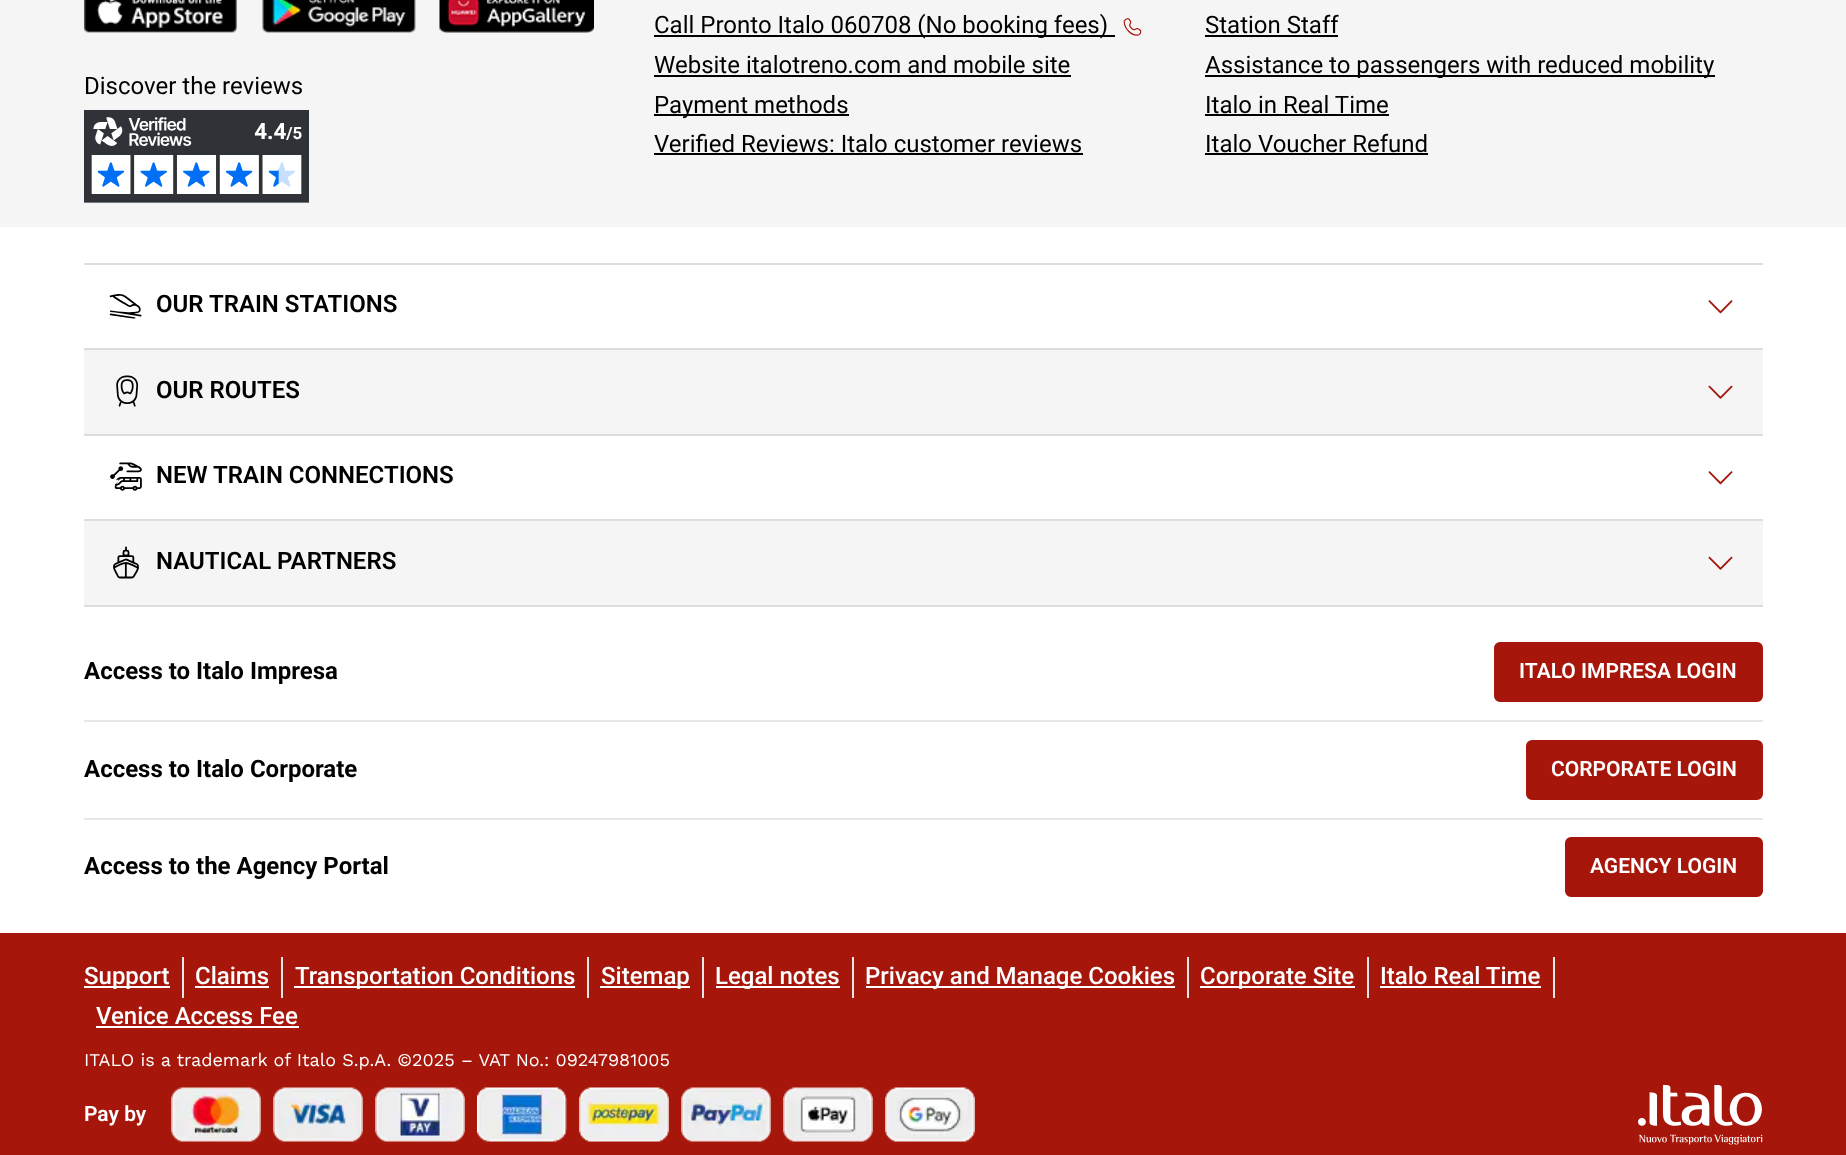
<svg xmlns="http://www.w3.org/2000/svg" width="1846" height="1155">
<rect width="100%" height="100%" fill="#fff"/>
<rect width="1846" height="227" fill="#f5f5f5"/>
<image x="84" y="0" width="153" height="33" href="media/1.png"/>
<image x="262" y="0" width="154" height="33" href="media/2.png"/>
<image x="439" y="0" width="155" height="33" href="media/3.png"/>
<text x="84" y="94" style="font-family:Roboto;font-size:24px;fill:#000">Discover the reviews</text>
<image x="84" y="110" width="225" height="93" href="media/4.png"/>
<rect x="654" y="35" width="461" height="2" fill="#000"/>
<text x="654" y="33" style="font-family:Roboto;font-size:24px;fill:#000">Call Pronto Italo 060708 (No booking fees)</text>
<image x="1123" y="18" width="19" height="18" href="media/5.png"/>
<text x="654" y="73" style="font-family:Roboto;font-size:24px;fill:#000">Website italotreno.com and mobile site</text>
<rect x="654" y="75" width="417" height="2" fill="#000"/>
<rect x="654" y="114" width="195" height="2" fill="#000"/>
<text x="654" y="113" style="font-family:Roboto;font-size:24px;fill:#000">Payment methods</text>
<text x="654" y="152" style="font-family:Roboto;font-size:24px;fill:#000">Verified Reviews: Italo customer reviews</text>
<rect x="654" y="153" width="429" height="2" fill="#000"/>
<text x="1205" y="33" style="font-family:Roboto;font-size:24px;fill:#000">Station Staff</text>
<rect x="1205" y="35" width="133" height="2" fill="#000"/>
<rect x="1205" y="75" width="510" height="2" fill="#000"/>
<text x="1205" y="73" style="font-family:Roboto;font-size:24px;fill:#000">Assistance to passengers with reduced mobility</text>
<text x="1205" y="113" style="font-family:Roboto;font-size:24px;fill:#000">Italo in Real Time</text>
<rect x="1205" y="114" width="184" height="2" fill="#000"/>
<text x="1205" y="152" style="font-family:Roboto;font-size:24px;fill:#000">Italo Voucher Refund</text>
<rect x="1205" y="153" width="223" height="2" fill="#000"/>
<rect x="84" y="263" width="1679" height="2" fill="#ddd"/>
<image x="109" y="294" width="33" height="25" href="media/6.png"/>
<text x="156" y="312" style="font-family:Roboto;font-size:24px;font-weight:600;fill:#000">OUR TRAIN STATIONS</text>
<image x="1708" y="300" width="25" height="14" href="media/7.png"/>
<rect x="84" y="350" width="1679" height="84" fill="#f5f5f5"/>
<rect x="84" y="348" width="1679" height="2" fill="#ddd"/>
<image x="116" y="375" width="23" height="32" href="media/8.png"/>
<text x="156" y="398" style="font-family:Roboto;font-size:24px;font-weight:600;fill:#000">OUR ROUTES</text>
<image x="1708" y="385" width="25" height="14" href="media/9.png"/>
<rect x="84" y="434" width="1679" height="2" fill="#ddd"/>
<image x="110" y="462" width="32" height="29" href="media/10.png"/>
<text x="156" y="483" style="font-family:Roboto;font-size:24px;font-weight:600;fill:#000">NEW TRAIN CONNECTIONS</text>
<image x="1708" y="471" width="25" height="14" href="media/7.png"/>
<rect x="84" y="521" width="1679" height="84" fill="#f5f5f5"/>
<rect x="84" y="519" width="1679" height="2" fill="#ddd"/>
<rect x="84" y="605" width="1679" height="2" fill="#ddd"/>
<image x="113" y="546" width="26" height="33" href="media/11.png"/>
<text x="156" y="569" style="font-family:Roboto;font-size:24px;font-weight:600;fill:#000">NAUTICAL PARTNERS</text>
<image x="1708" y="556" width="25" height="14" href="media/12.png"/>
<text x="84" y="679" style="font-family:Roboto;font-size:24px;font-weight:bold;fill:#000">Access to Italo Impresa</text>
<rect x="1495" y="643" width="267" height="58" rx="5" fill="#a6160a" stroke="#a6160a" stroke-width="2"/>
<text x="1519" y="678" style="font-family:Roboto;font-size:21px;font-weight:600;fill:#fff">ITALO IMPRESA LOGIN</text>
<rect x="84" y="720" width="1679" height="2" fill="#e5e7eb"/>
<text x="84" y="777" style="font-family:Roboto;font-size:24px;font-weight:bold;fill:#000">Access to Italo Corporate</text>
<rect x="1527" y="741" width="235" height="58" rx="5" fill="#a6160a" stroke="#a6160a" stroke-width="2"/>
<text x="1551" y="776" style="font-family:Roboto;font-size:21px;font-weight:600;fill:#fff">CORPORATE LOGIN</text>
<rect x="84" y="818" width="1679" height="2" fill="#e5e7eb"/>
<text x="84" y="874" style="font-family:Roboto;font-size:24px;font-weight:bold;fill:#000">Access to the Agency Portal</text>
<rect x="1566" y="838" width="196" height="58" rx="5" fill="#a6160a" stroke="#a6160a" stroke-width="2"/>
<text x="1590" y="873" style="font-family:Roboto;font-size:21px;font-weight:600;fill:#fff">AGENCY LOGIN</text>
<rect y="933" width="1846" height="222" fill="#a6160a"/>
<rect x="182" y="957" width="2" height="41" fill="#e5e7eb"/>
<rect x="84" y="986" width="86" height="2" fill="#fff"/>
<text x="84" y="984" style="font-family:Roboto;font-size:24px;font-weight:500;fill:#fff">Support</text>
<rect x="281" y="957" width="2" height="41" fill="#e5e7eb"/>
<text x="195" y="984" style="font-family:Roboto;font-size:24px;font-weight:500;fill:#fff">Claims</text>
<rect x="195" y="986" width="74" height="2" fill="#fff"/>
<rect x="587" y="957" width="2" height="41" fill="#e5e7eb"/>
<rect x="294" y="986" width="281" height="2" fill="#fff"/>
<text x="295" y="984" style="font-family:Roboto;font-size:24px;font-weight:500;fill:#fff">Transportation Conditions</text>
<rect x="702" y="957" width="2" height="41" fill="#e5e7eb"/>
<rect x="600" y="986" width="90" height="2" fill="#fff"/>
<text x="601" y="984" style="font-family:Roboto;font-size:24px;font-weight:500;fill:#fff">Sitemap</text>
<rect x="852" y="957" width="2" height="41" fill="#e5e7eb"/>
<rect x="716" y="986" width="124" height="2" fill="#fff"/>
<text x="715" y="984" style="font-family:Roboto;font-size:24px;font-weight:500;fill:#fff">Legal notes</text>
<rect x="1187" y="957" width="2" height="41" fill="#e5e7eb"/>
<rect x="866" y="986" width="309" height="2" fill="#fff"/>
<text x="865" y="984" style="font-family:Roboto;font-size:24px;font-weight:500;fill:#fff">Privacy and Manage Cookies</text>
<rect x="1367" y="957" width="2" height="41" fill="#e5e7eb"/>
<rect x="1200" y="986" width="155" height="2" fill="#fff"/>
<text x="1200" y="984" style="font-family:Roboto;font-size:24px;font-weight:500;fill:#fff">Corporate Site</text>
<rect x="1553" y="957" width="2" height="41" fill="#e5e7eb"/>
<text x="1380" y="984" style="font-family:Roboto;font-size:24px;font-weight:500;fill:#fff">Italo Real Time</text>
<rect x="1380" y="986" width="161" height="2" fill="#fff"/>
<text x="96" y="1024" style="font-family:Roboto;font-size:24px;font-weight:500;fill:#fff">Venice Access Fee</text>
<rect x="96" y="1026" width="203" height="2" fill="#fff"/>
<text x="84" y="1066" style="font-family:Work Sans;font-size:18px;fill:#fff">ITALO is a trademark of Italo S.p.A. ©2025 – VAT No.: 09247981005</text>
<text x="84" y="1121" style="font-family:Roboto;font-size:21px;font-weight:600;fill:#fff">Pay by</text>
<image x="171" y="1087" width="90" height="55" href="media/13.png"/>
<image x="273" y="1087" width="90" height="55" href="media/14.png"/>
<image x="375" y="1087" width="90" height="55" href="media/15.png"/>
<image x="477" y="1087" width="90" height="55" href="media/16.png"/>
<image x="579" y="1087" width="90" height="55" href="media/17.png"/>
<image x="681" y="1087" width="90" height="55" href="media/18.png"/>
<image x="783" y="1087" width="90" height="55" href="media/19.png"/>
<image x="885" y="1087" width="90" height="55" href="media/20.png"/>
<image x="1638" y="1085" width="125" height="60" href="media/21.png"/>
</svg>
